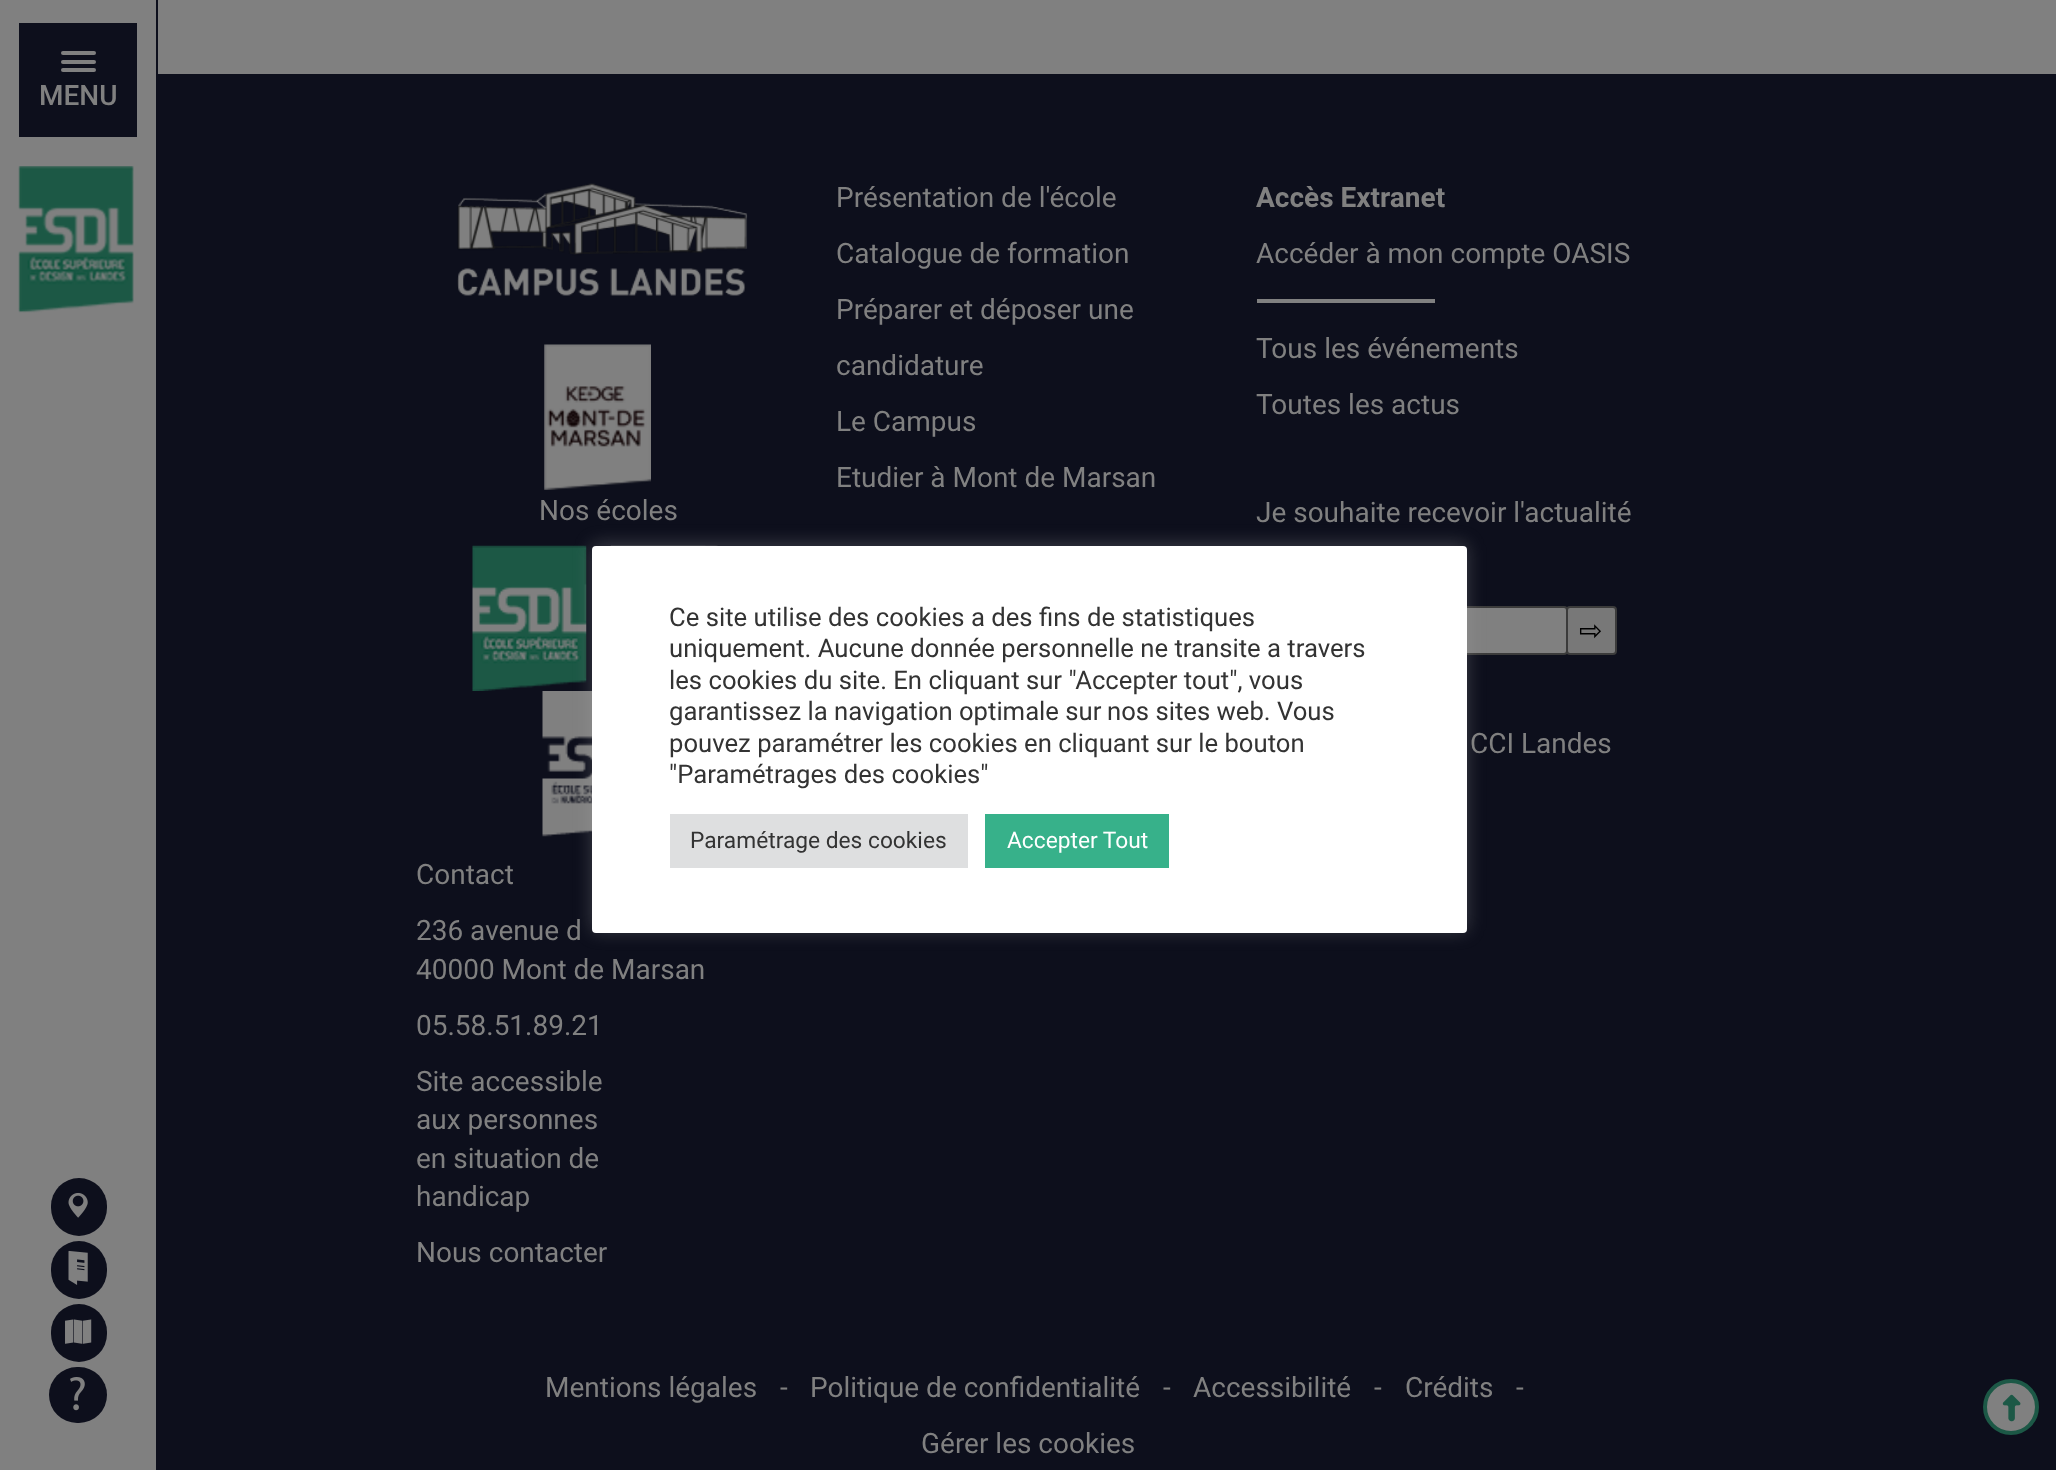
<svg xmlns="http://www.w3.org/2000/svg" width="2056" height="1470">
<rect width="100%" height="100%" fill="#808080"/>
<rect x="156" width="2" height="1470" fill="#0d0f1c"/>
<rect x="19" y="23" width="118" height="114" fill="#0d0f1c"/>
<rect x="61" y="60" width="35" height="4" rx="2" fill="#808080"/>
<rect x="61" y="51" width="35" height="4" rx="2" fill="#808080"/>
<rect x="61" y="68" width="35" height="4" rx="2" fill="#808080"/>
<text x="39" y="105" style="font-family:Roboto;font-size:28px;font-weight:500;fill:#808080">MENU</text>
<image x="18" y="166" width="116" height="147" href="media/1.png"/>
<rect x="51" y="1178" width="56" height="58" rx="28" fill="#0d0f1c"/>
<image x="68" y="1192" width="20" height="26" href="media/2.png"/>
<rect x="51" y="1241" width="56" height="58" rx="28" fill="#0d0f1c"/>
<image x="68" y="1250" width="20" height="35" href="media/3.png"/>
<rect x="51" y="1304" width="56" height="58" rx="28" fill="#0d0f1c"/>
<image x="65" y="1319" width="27" height="25" href="media/4.png"/>
<rect x="49" y="1367" width="58" height="56" rx="28" fill="#0d0f1c"/>
<image x="70" y="1377" width="15" height="34" href="media/5.png"/>
<rect x="158" y="74" width="1898" height="1396" fill="#0d0f1c"/>
<image x="457" y="183" width="291" height="113" href="media/6.png"/>
<image x="544" y="344" width="107" height="146" href="media/7.png"/>
<text x="539" y="520" style="font-family:Roboto;font-size:28px;fill:#808080">Nos écoles</text>
<image x="472" y="545" width="115" height="146" href="media/8.png"/>
<image x="610" y="545" width="108" height="1" href="media/9.png"/>
<image x="542" y="691" width="50" height="146" href="media/10.png"/>
<text x="416" y="884" style="font-family:Roboto;font-size:28px;fill:#808080">Contact</text>
<text x="416" y="940" style="font-family:Roboto;font-size:28px;fill:#808080">236 avenue d</text>
<text x="416" y="979" style="font-family:Roboto;font-size:28px;fill:#808080">40000 Mont de Marsan</text>
<text x="416" y="1035" style="font-family:Roboto;font-size:28px;fill:#808080">05.58.51.89.21</text>
<text x="416" y="1091" style="font-family:Roboto;font-size:28px;fill:#808080">Site accessible</text>
<text x="416" y="1129" style="font-family:Roboto;font-size:28px;fill:#808080">aux personnes</text>
<text x="416" y="1168" style="font-family:Roboto;font-size:28px;fill:#808080">en situation de</text>
<text x="416" y="1206" style="font-family:Roboto;font-size:28px;fill:#808080">handicap</text>
<text x="416" y="1262" style="font-family:Roboto;font-size:28px;fill:#808080">Nous contacter</text>
<text x="836" y="207" style="font-family:Roboto;font-size:28px;fill:#808080">Présentation de l'école</text>
<text x="836" y="263" style="font-family:Roboto;font-size:28px;fill:#808080">Catalogue de formation</text>
<text x="836" y="319" style="font-family:Roboto;font-size:28px;fill:#808080">Préparer et déposer une</text>
<text x="836" y="375" style="font-family:Roboto;font-size:28px;fill:#808080">candidature</text>
<text x="836" y="431" style="font-family:Roboto;font-size:28px;fill:#808080">Le Campus</text>
<text x="836" y="487" style="font-family:Roboto;font-size:28px;fill:#808080">Etudier à Mont de Marsan</text>
<text x="1256" y="207" style="font-family:Roboto;font-size:28px;font-weight:bold;fill:#808080">Accès Extranet</text>
<text x="1256" y="263" style="font-family:Roboto;font-size:28px;fill:#808080">Accéder à mon compte OASIS</text>
<rect x="1257" y="299" width="178" height="4" fill="#808080"/>
<text x="1256" y="358" style="font-family:Roboto;font-size:28px;fill:#808080">Tous les événements</text>
<text x="1256" y="414" style="font-family:Roboto;font-size:28px;fill:#808080">Toutes les actus</text>
<text x="1256" y="522" style="font-family:Roboto;font-size:28px;fill:#808080">Je souhaite recevoir l'actualité</text>
<rect x="1258" y="607" width="309" height="47" rx="3" fill="#808080" stroke="#3b3b3b" stroke-width="2"/>
<rect x="1567" y="607" width="49" height="47" rx="3" fill="#787878" stroke="#3b3b3b" stroke-width="2"/>
<text x="1579" y="640" style="font-family:DejaVu Sans;font-size:28px;fill:#000">⇨</text>
<text x="1470" y="753" style="font-family:Roboto;font-size:28px;fill:#808080">CCI Landes</text>
<text x="545" y="1397" style="font-family:Roboto;font-size:28px;fill:#808080">Mentions légales</text>
<text x="780" y="1397" style="font-family:Roboto;font-size:28px;fill:#808080">-</text>
<text x="810" y="1397" style="font-family:Roboto;font-size:28px;fill:#808080">Politique de confidentialité</text>
<text x="1163" y="1397" style="font-family:Roboto;font-size:28px;fill:#808080">-</text>
<text x="1193" y="1397" style="font-family:Roboto;font-size:28px;fill:#808080">Accessibilité</text>
<text x="1374" y="1397" style="font-family:Roboto;font-size:28px;fill:#808080">-</text>
<text x="1405" y="1397" style="font-family:Roboto;font-size:28px;fill:#808080">Crédits</text>
<text x="1516" y="1397" style="font-family:Roboto;font-size:28px;fill:#808080">-</text>
<text x="921" y="1453" style="font-family:Roboto;font-size:28px;fill:#808080">Gérer les cookies</text>
<rect x="592" y="544" width="875" height="387" rx="4" fill="#acabab4d" filter="blur(9px)"/>
<rect x="592" y="546" width="875" height="387" rx="4" fill="#fff"/>
<text x="669" y="626" style="font-family:Roboto;font-size:25.7px;fill:#333">Ce site utilise des cookies a des fins de statistiques</text>
<text x="669" y="657" style="font-family:Roboto;font-size:25.7px;fill:#333">uniquement. Aucune donnée personnelle ne transite a travers</text>
<text x="669" y="689" style="font-family:Roboto;font-size:25.7px;fill:#333">les cookies du site. En cliquant sur "Accepter tout", vous</text>
<text x="669" y="720" style="font-family:Roboto;font-size:25.7px;fill:#333">garantissez la navigation optimale sur</text>
<text x="1107" y="720" style="font-family:Roboto;font-size:25.7px;fill:#333">nos sites web. Vous</text>
<text x="669" y="752" style="font-family:Roboto;font-size:25.7px;fill:#333">pouvez paramétrer les cookies en cliquant sur le bouton</text>
<text x="669" y="783" style="font-family:Roboto;font-size:25.7px;fill:#333">"Paramétrages des cookies"</text>
<rect x="670" y="814" width="298" height="54" fill="#dedfe0"/>
<text x="690" y="848" style="font-family:Roboto;font-size:22.75px;fill:#333">Paramétrage des cookies</text>
<rect x="985" y="814" width="184" height="54" fill="#37b18a"/>
<text x="1007" y="848" style="font-family:Roboto;font-size:22.75px;fill:#fff">Accepter Tout</text>
<circle cx="2011" cy="1407" r="26" fill="#808080" stroke="#1c5846" stroke-width="4"/>
<image x="2002" y="1394" width="19" height="28" href="media/11.png"/>
</svg>
